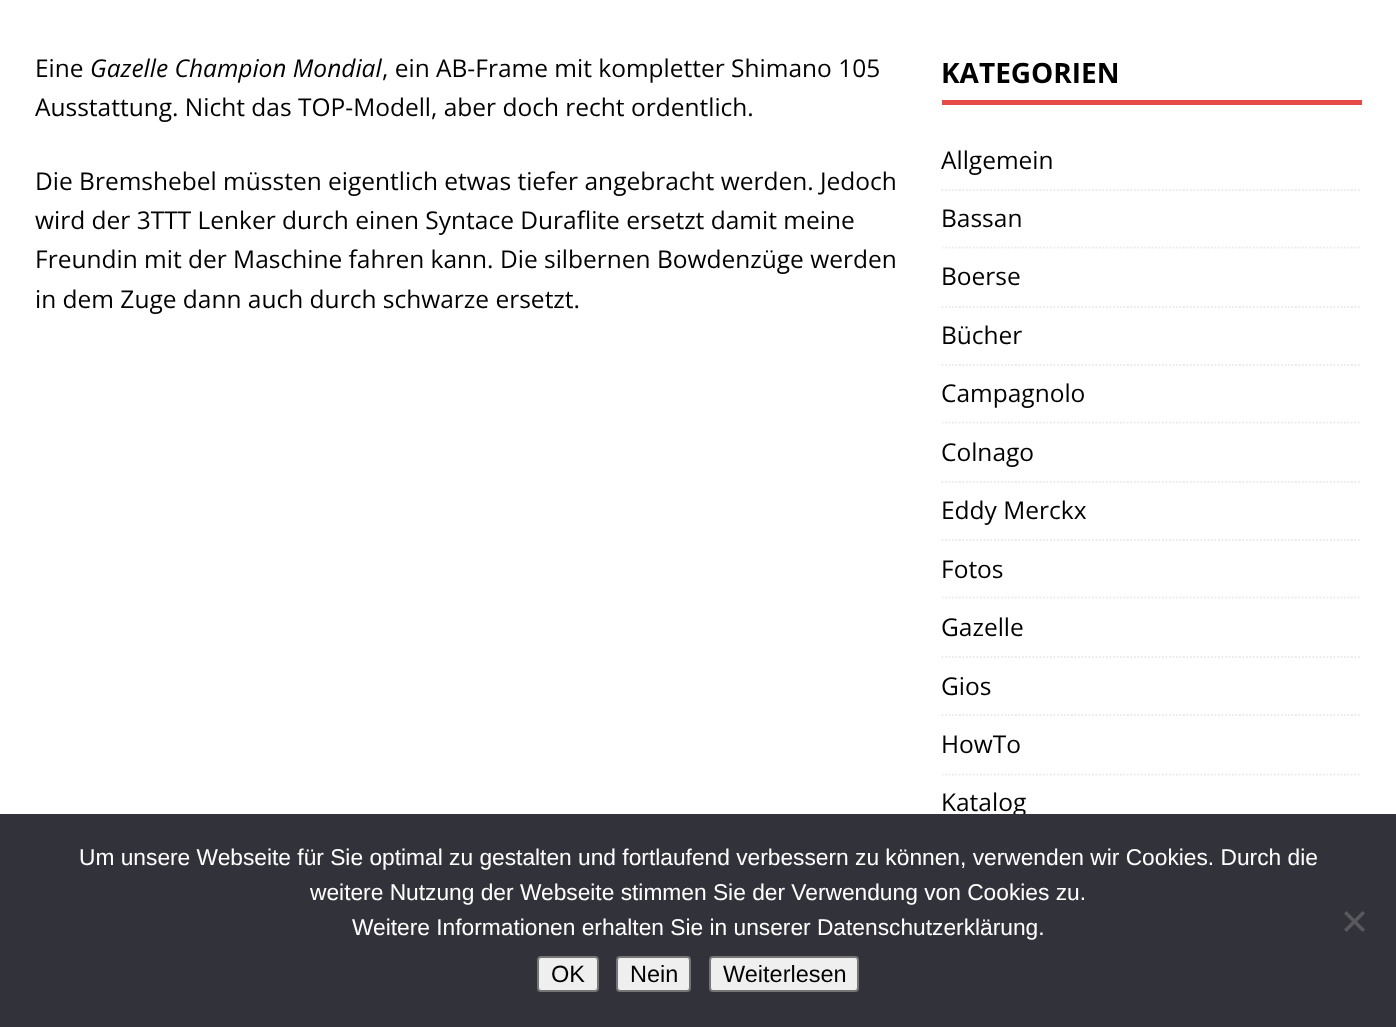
<svg xmlns="http://www.w3.org/2000/svg" width="1396" height="1027">
<defs>
<clipPath id="clip1"><rect x="942" y="56" width="420" height="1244"/></clipPath>
</defs>
<rect width="100%" height="100%" fill="#fff"/>
<text x="35" y="77" style="font-family:Open Sans;font-size:24.5px;fill:#000">Eine</text>
<text x="90" y="77" style="font-family:Open Sans;font-size:24.5px;font-style:italic;fill:#000">Gazelle Champion Mondial</text>
<text x="382" y="77" style="font-family:Open Sans;font-size:24.5px;fill:#000">, ein AB-Frame mit kompletter Shimano 105</text>
<text x="35" y="116" style="font-family:Open Sans;font-size:24.5px;fill:#000">Ausstattung. Nicht das TOP-Modell, aber doch recht ordentlich.</text>
<text x="35" y="190" style="font-family:Open Sans;font-size:24.5px;fill:#000">Die Bremshebel müssten eigentlich etwas tiefer angebracht werden. Jedoch</text>
<text x="35" y="229" style="font-family:Open Sans;font-size:24.5px;fill:#000">wird der 3TTT Lenker durch einen Syntace Duraflite ersetzt damit meine</text>
<text x="35" y="268" style="font-family:Open Sans;font-size:24.5px;fill:#000">Freundin mit der Maschine fahren kann. Die silbernen Bowdenzüge werden</text>
<text x="35" y="308" style="font-family:Open Sans;font-size:24.5px;fill:#000">in dem Zuge dann auch durch schwarze ersetzt.</text>
<rect x="942" y="100" width="420" height="5" fill="#e64946"/>
<text x="941" y="83" style="font-family:Open Sans;font-size:28px;font-weight:bold;fill:#000">KATEGORIEN</text>
<path d="M941.5 190h420" fill="none" stroke="#ebebeb" stroke-width="1.8" stroke-dasharray="1.75 1.75"/>
<text x="941" y="169" style="font-family:Open Sans;font-size:24.5px;fill:#000">Allgemein</text>
<g clip-path="url(#clip1)">
<path d="M941.5 247.5h420" fill="none" stroke="#ebebeb" stroke-width="1.8" stroke-dasharray="1.75 1.75"/>
</g>
<text x="941" y="227" style="font-family:Open Sans;font-size:24.5px;fill:#000">Bassan</text>
<path d="M941.5 307h420" fill="none" stroke="#ebebeb" stroke-width="1.8" stroke-dasharray="1.75 1.75"/>
<text x="941" y="285" style="font-family:Open Sans;font-size:24.5px;fill:#000">Boerse</text>
<path d="M941.5 365h420" fill="none" stroke="#ebebeb" stroke-width="1.8" stroke-dasharray="1.75 1.75"/>
<text x="941" y="344" style="font-family:Open Sans;font-size:24.5px;fill:#000">Bücher</text>
<g clip-path="url(#clip1)">
<path d="M941.5 422.5h420" fill="none" stroke="#ebebeb" stroke-width="1.8" stroke-dasharray="1.75 1.75"/>
</g>
<text x="941" y="402" style="font-family:Open Sans;font-size:24.5px;fill:#000">Campagnolo</text>
<path d="M941.5 482h420" fill="none" stroke="#ebebeb" stroke-width="1.8" stroke-dasharray="1.75 1.75"/>
<text x="941" y="461" style="font-family:Open Sans;font-size:24.5px;fill:#000">Colnago</text>
<path d="M941.5 540h420" fill="none" stroke="#ebebeb" stroke-width="1.8" stroke-dasharray="1.75 1.75"/>
<text x="941" y="519" style="font-family:Open Sans;font-size:24.5px;fill:#000">Eddy Merckx</text>
<g clip-path="url(#clip1)">
<path d="M941.5 597.5h420" fill="none" stroke="#ebebeb" stroke-width="1.8" stroke-dasharray="1.75 1.75"/>
</g>
<text x="941" y="578" style="font-family:Open Sans;font-size:24.5px;fill:#000">Fotos</text>
<path d="M941.5 657h420" fill="none" stroke="#ebebeb" stroke-width="1.8" stroke-dasharray="1.75 1.75"/>
<text x="941" y="636" style="font-family:Open Sans;font-size:24.5px;fill:#000">Gazelle</text>
<path d="M941.5 715h420" fill="none" stroke="#ebebeb" stroke-width="1.8" stroke-dasharray="1.75 1.75"/>
<text x="941" y="695" style="font-family:Open Sans;font-size:24.5px;fill:#000">Gios</text>
<g clip-path="url(#clip1)">
<path d="M941.5 774.5h420" fill="none" stroke="#ebebeb" stroke-width="1.8" stroke-dasharray="1.75 1.75"/>
</g>
<text x="941" y="753" style="font-family:Open Sans;font-size:24.5px;fill:#000">HowTo</text>
<text x="941" y="811" style="font-family:Open Sans;font-size:24.5px;fill:#000">Katalog</text>
<rect y="814" width="1396" height="213" fill="#32323a"/>
<text x="79" y="865" style="font-family:Liberation Sans;font-size:22.75px;fill:#fff">Um unsere Webseite für Sie optimal zu gestalten und fortlaufend verbessern zu können, verwenden wir Cookies. Durch die</text>
<text x="310" y="900" style="font-family:Liberation Sans;font-size:22.75px;fill:#fff">weitere Nutzung der Webseite stimmen Sie der Verwendung von Cookies zu.</text>
<text x="352" y="935" style="font-family:Liberation Sans;font-size:22.75px;fill:#fff">Weitere Informationen erhalten Sie in unserer Datenschutzerklärung.</text>
<path d="M1362.5 911l2.5 2.5l-18.5 18.5l-2.5-2.5z" fill="#59595d"/>
<path d="M1344 913.5l2.5-2.5l18.5 18.5l-2.5 2.5z" fill="#59595d"/>
<rect x="538" y="957" width="60" height="34" rx="3" fill="#efefef" stroke="#767676" stroke-width="2"/>
<text x="551" y="982" style="font-family:Liberation Sans;font-size:23.5px;fill:#000">OK</text>
<rect x="617" y="957" width="73" height="34" rx="3" fill="#efefef" stroke="#767676" stroke-width="2"/>
<text x="630" y="982" style="font-family:Liberation Sans;font-size:23.5px;fill:#000">Nein</text>
<rect x="710" y="957" width="148" height="34" rx="3" fill="#efefef" stroke="#767676" stroke-width="2"/>
<text x="723" y="982" style="font-family:Liberation Sans;font-size:23.5px;fill:#000">Weiterlesen</text>
</svg>
